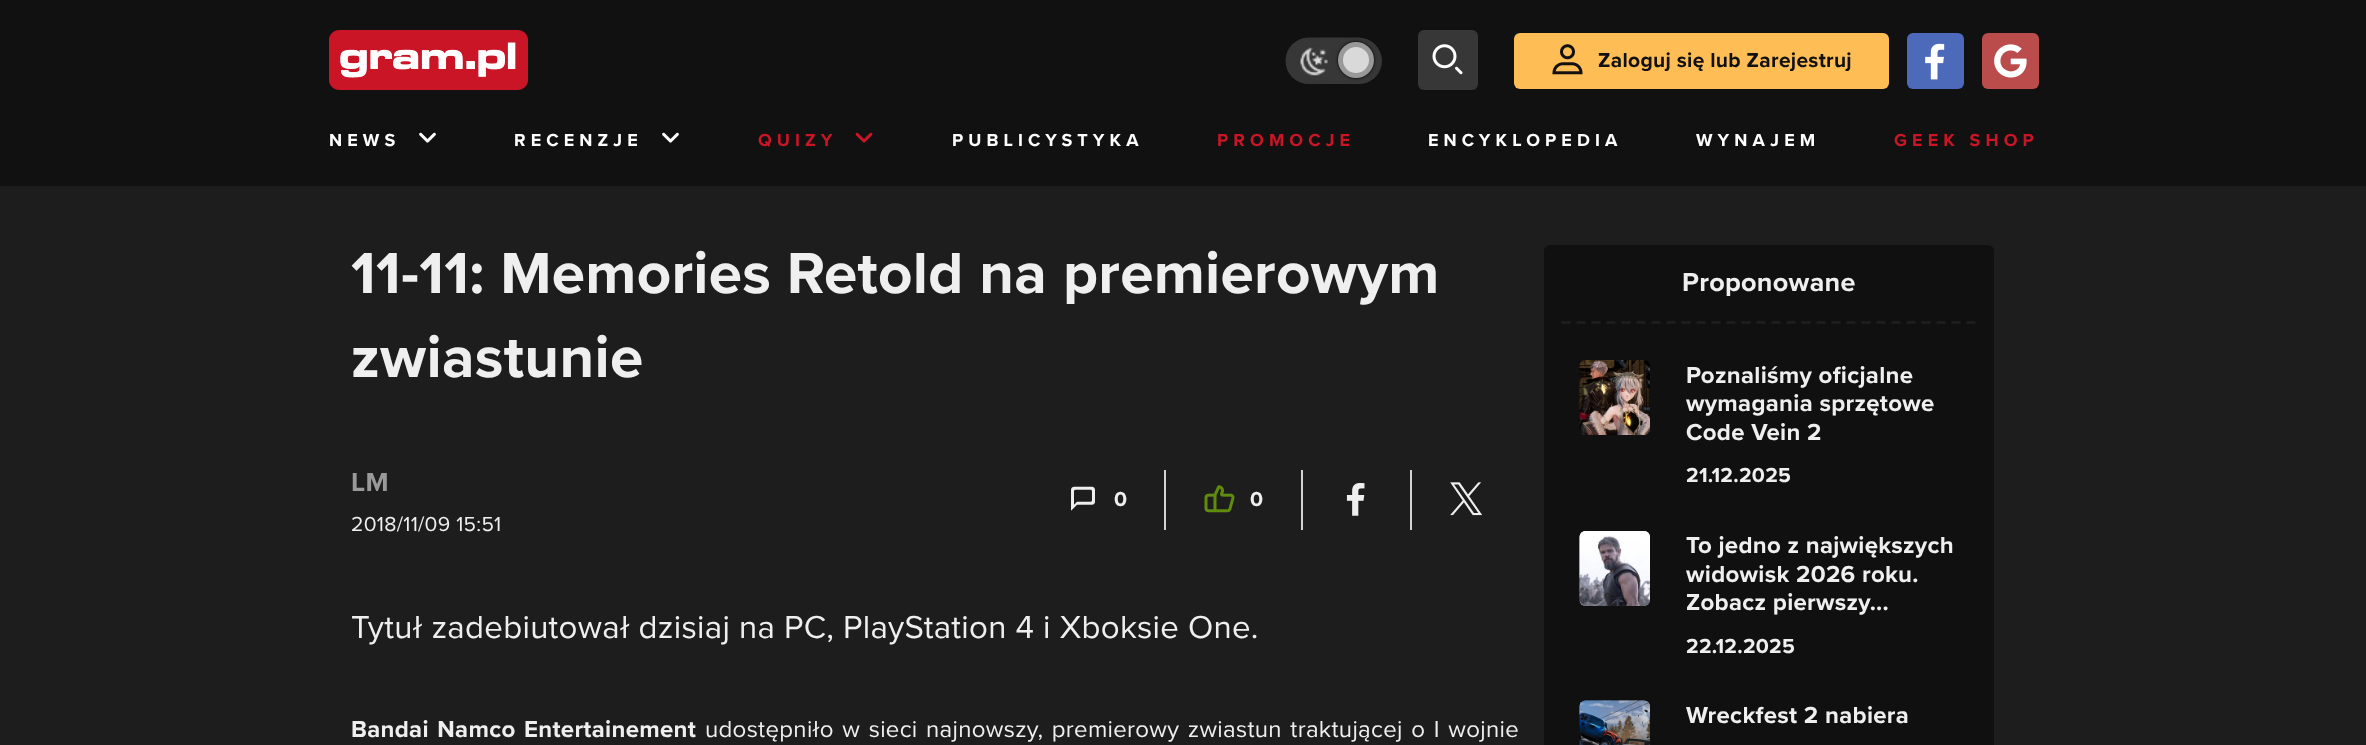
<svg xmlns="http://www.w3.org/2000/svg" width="2366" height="745">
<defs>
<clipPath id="clip1"><rect x="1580" y="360" width="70" height="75" rx="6"/></clipPath>
<clipPath id="clip2"><rect x="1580" y="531" width="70" height="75" rx="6"/></clipPath>
<clipPath id="clip3"><rect x="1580" y="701" width="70" height="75" rx="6"/></clipPath>
</defs>
<rect width="100%" height="100%" fill="#1d1d1d"/>
<rect width="2366" height="186" fill="#111"/>
<image x="329" y="30" width="199" height="60" href="media/1.png"/>
<rect x="1286" y="38" width="96" height="46" rx="23" fill="#373737"/>
<image x="1285" y="37" width="93" height="47" href="media/2.png"/>
<rect x="1338" y="42" width="36" height="36" rx="18" fill="#000" filter="blur(1.5px)"/>
<circle cx="1356" cy="60" r="15.5" fill="#d9d9d9" stroke="#999" stroke-width="5"/>
<rect x="1418" y="30" width="60" height="60" rx="6" fill="#373737"/>
<image x="1432" y="44" width="31" height="31" href="media/3.png"/>
<rect x="1514" y="33" width="375" height="56" rx="6" fill="#ffbd56"/>
<image x="1552" y="44" width="31" height="31" href="media/4.png"/>
<text x="1598" y="67" style="font-family:Proxima Nova;font-size:21px;font-weight:bold;letter-spacing:0.3px;fill:#111">Zaloguj się lub Zarejestruj</text>
<rect x="1907" y="33" width="57" height="56" rx="6" fill="#4c69ba"/>
<image x="1925" y="43" width="20" height="37" href="media/5.png"/>
<rect x="1982" y="33" width="57" height="56" rx="6" fill="#ba4c4c"/>
<image x="1994" y="44" width="33" height="34" href="media/6.png"/>
<text x="329" y="146" style="font-family:Proxima Nova;font-size:18px;font-weight:bold;letter-spacing:5.1px;fill:#fff">NEWS</text>
<image x="419" y="132" width="17" height="11" href="media/7.png"/>
<text x="514" y="146" style="font-family:Proxima Nova;font-size:18px;font-weight:bold;letter-spacing:5.1px;fill:#fff">RECENZJE</text>
<image x="662" y="132" width="17" height="11" href="media/7.png"/>
<text x="758" y="146" style="font-family:Proxima Nova;font-size:18px;font-weight:bold;letter-spacing:5.1px;fill:#ca1527">QUIZY</text>
<image x="855" y="132" width="18" height="11" href="media/8.png"/>
<text x="952" y="146" style="font-family:Proxima Nova;font-size:18px;font-weight:bold;letter-spacing:5.1px;fill:#fff">PUBLICYSTYKA</text>
<text x="1217" y="146" style="font-family:Proxima Nova;font-size:18px;font-weight:bold;letter-spacing:5.1px;fill:#ca1527">PROMOCJE</text>
<text x="1428" y="146" style="font-family:Proxima Nova;font-size:18px;font-weight:bold;letter-spacing:5.1px;fill:#fff">ENCYKLOPEDIA</text>
<text x="1696" y="146" style="font-family:Proxima Nova;font-size:18px;font-weight:bold;letter-spacing:5.1px;fill:#fff">WYNAJEM</text>
<text x="1894" y="146" style="font-family:Proxima Nova;font-size:18px;font-weight:bold;letter-spacing:5.1px;fill:#ca1527">GEEK SHOP</text>
<text x="351" y="293" style="font-family:Proxima Nova;font-size:60px;font-weight:bold;letter-spacing:0.3px;fill:#efefef">11-11: Memories Retold na premierowym</text>
<text x="351" y="377" style="font-family:Proxima Nova;font-size:60px;font-weight:bold;letter-spacing:0.3px;fill:#efefef">zwiastunie</text>
<text x="351" y="491" style="font-family:Proxima Nova;font-size:27px;font-weight:bold;letter-spacing:0.3px;fill:#999">LM</text>
<text x="351" y="531" style="font-family:Proxima Nova;font-size:21px;letter-spacing:0.3px;fill:#efefef">2018/11/09 15:51</text>
<image x="1071" y="486" width="24" height="25" href="media/9.png"/>
<text x="1114" y="506" style="font-family:Proxima Nova;font-size:21px;font-weight:bold;letter-spacing:1px;fill:#efefef">0</text>
<rect x="1164" y="470" width="2" height="60" fill="#d2d2d2"/>
<image x="1204" y="485" width="31" height="28" href="media/10.png"/>
<text x="1250" y="506" style="font-family:Proxima Nova;font-size:21px;font-weight:bold;letter-spacing:1px;fill:#efefef">0</text>
<rect x="1301" y="470" width="2" height="60" fill="#d2d2d2"/>
<image x="1346" y="483" width="19" height="33" href="media/11.png"/>
<rect x="1410" y="470" width="2" height="60" fill="#d2d2d2"/>
<image x="1450" y="482" width="32" height="34" href="media/12.png"/>
<text x="351" y="638" style="font-family:Proxima Nova;font-size:33px;letter-spacing:0.3px;fill:#efefef">Tytuł zadebiutował dzisiaj na PC, PlayStation 4 i Xboksie One.</text>
<text x="351" y="737" word-spacing="2" style="font-family:Proxima Nova;font-size:24px;font-weight:bold;letter-spacing:0.3px;fill:#efefef">Bandai Namco Entertainement</text>
<text x="705" y="737" word-spacing="2" style="font-family:Proxima Nova;font-size:24px;letter-spacing:0.3px;fill:#efefef">udostępniło w sieci najnowszy, premierowy zwiastun traktującej o I wojnie</text>
<rect x="1544" y="245" width="450" height="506" rx="6" fill="#101010"/>
<path d="M1561.5 322.5h414" fill="none" stroke="#1d1d1d" stroke-width="3" stroke-dasharray="9 6"/>
<text x="1682" y="291" style="font-family:Proxima Nova;font-size:27px;font-weight:bold;letter-spacing:0.3px;fill:#efefef">Proponowane</text>
<image x="1579" y="360" width="71" height="75" href="media/13.png"/>
<g clip-path="url(#clip1)">
<rect x="1572" y="353" width="86" height="90" fill="#d2d2d233" filter="blur(30px)"/>
</g>
<image x="1580" y="360" width="70" height="75" href="media/14.png"/>
<image x="1579" y="531" width="71" height="75" href="media/16.png"/>
<g clip-path="url(#clip2)">
<rect x="1572" y="524" width="86" height="90" fill="#d2d2d233" filter="blur(30px)"/>
</g>
<image x="1579" y="360" width="71" height="75" href="media/15.png"/>
<text x="1686" y="383" style="font-family:Proxima Nova;font-size:24px;font-weight:bold;letter-spacing:0.3px;fill:#efefef">Poznaliśmy oficjalne</text>
<text x="1686" y="411" style="font-family:Proxima Nova;font-size:24px;font-weight:bold;letter-spacing:0.3px;fill:#efefef">wymagania sprzętowe</text>
<text x="1686" y="440" style="font-family:Proxima Nova;font-size:24px;font-weight:bold;letter-spacing:0.3px;fill:#efefef">Code Vein 2</text>
<text x="1686" y="482" style="font-family:Proxima Nova;font-size:21px;font-weight:bold;letter-spacing:0.3px;fill:#efefef">21.12.2025</text>
<image x="1579" y="531" width="71" height="75" href="media/17.png"/>
<image x="1579" y="700" width="71" height="45" href="media/19.png"/>
<g clip-path="url(#clip3)">
<rect x="1572" y="693" width="86" height="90" fill="#d2d2d233" filter="blur(30px)"/>
</g>
<image x="1579" y="531" width="71" height="75" href="media/18.png"/>
<text x="1686" y="553" style="font-family:Proxima Nova;font-size:24px;font-weight:bold;letter-spacing:0.3px;fill:#efefef">To jedno z największych</text>
<text x="1686" y="582" style="font-family:Proxima Nova;font-size:24px;font-weight:bold;letter-spacing:0.3px;fill:#efefef">widowisk 2026 roku.</text>
<text x="1686" y="610" style="font-family:Proxima Nova;font-size:24px;font-weight:bold;letter-spacing:0.3px;fill:#efefef">Zobacz pierwszy...</text>
<text x="1686" y="653" style="font-family:Proxima Nova;font-size:21px;font-weight:bold;letter-spacing:0.3px;fill:#efefef">22.12.2025</text>
<image x="1580" y="701" width="70" height="6" href="media/20.png"/>
<image x="1579" y="700" width="71" height="45" href="media/21.png"/>
<text x="1686" y="723" style="font-family:Proxima Nova;font-size:24px;font-weight:bold;letter-spacing:0.3px;fill:#efefef">Wreckfest 2 nabiera</text>
</svg>
